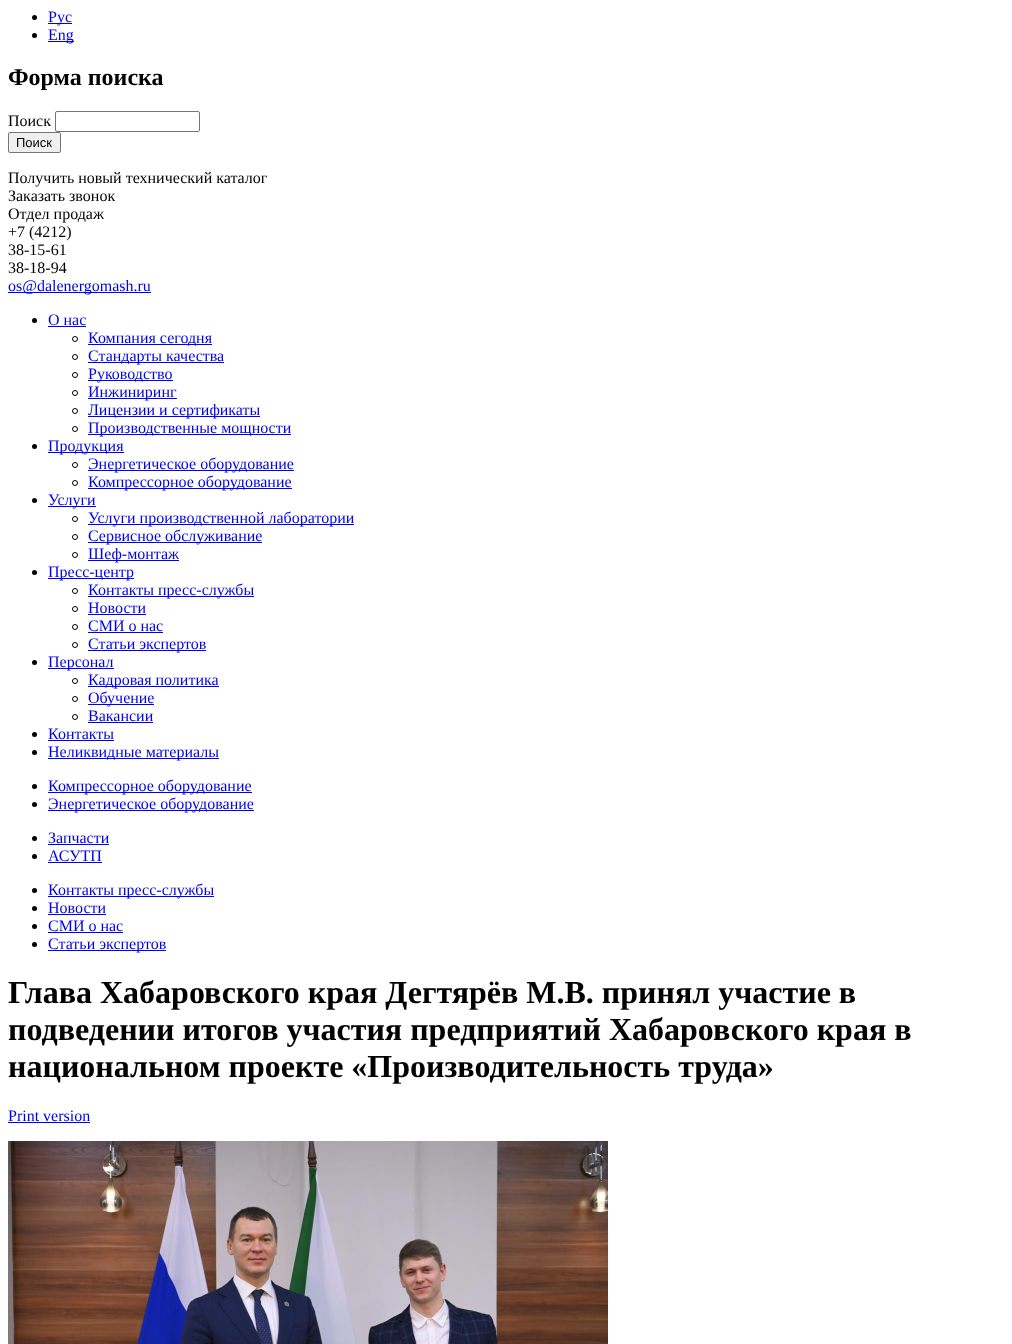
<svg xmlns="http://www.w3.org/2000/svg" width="1012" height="1344">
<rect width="100%" height="100%" fill="#fff"/>
<circle cx="34.5" cy="17.5" r="2.5" fill="#000"/>
<rect x="48" y="23" width="24" height="1" fill="#00e"/>
<text x="48" y="22" style="font-family:Liberation Serif;font-size:16px;fill:#00e">Рус</text>
<circle cx="34.5" cy="35.5" r="2.5" fill="#000"/>
<rect x="48" y="41" width="26" height="1" fill="#00e"/>
<text x="48" y="40" style="font-family:Liberation Serif;font-size:16px;fill:#00e">Eng</text>
<text x="8" y="85" style="font-family:Liberation Serif;font-size:24px;font-weight:bold;fill:#000">Форма поиска</text>
<text x="8" y="126" style="font-family:Liberation Serif;font-size:16px;fill:#000">Поиск</text>
<rect x="55.5" y="111.5" width="144" height="20" rx="1.5" fill="none" stroke="#767676"/>
<rect x="8.5" y="132.5" width="52" height="20" rx="1.5" fill="#efefef" stroke="#767676"/>
<text x="16" y="147" style="font-family:Liberation Sans;font-size:13px;fill:#000">Поиск</text>
<text x="8" y="183" style="font-family:Liberation Serif;font-size:16px;fill:#000">Получить новый технический каталог</text>
<text x="8" y="201" style="font-family:Liberation Serif;font-size:16px;fill:#000">Заказать звонок</text>
<text x="8" y="219" style="font-family:Liberation Serif;font-size:16px;fill:#000">Отдел продаж</text>
<text x="8" y="237" style="font-family:Liberation Serif;font-size:16px;fill:#000">+7 (4212)</text>
<text x="8" y="255" style="font-family:Liberation Serif;font-size:16px;fill:#000">38-15-61</text>
<text x="8" y="273" style="font-family:Liberation Serif;font-size:16px;fill:#000">38-18-94</text>
<rect x="8" y="292" width="143" height="1" fill="#00e"/>
<text x="8" y="291" style="font-family:Liberation Serif;font-size:16px;fill:#00e">os@dalenergomash.ru</text>
<circle cx="34.5" cy="320.5" r="2.5" fill="#000"/>
<text x="48" y="325" style="font-family:Liberation Serif;font-size:16px;fill:#00e">О нас</text>
<rect x="48" y="326" width="38" height="1" fill="#00e"/>
<circle cx="75" cy="339" r="2.5" fill="none" stroke="#000"/>
<rect x="88" y="344" width="124" height="1" fill="#00e"/>
<text x="88" y="343" style="font-family:Liberation Serif;font-size:16px;fill:#00e">Компания сегодня</text>
<circle cx="75" cy="357" r="2.5" fill="none" stroke="#000"/>
<rect x="88" y="362" width="136" height="1" fill="#00e"/>
<text x="88" y="361" style="font-family:Liberation Serif;font-size:16px;fill:#00e">Стандарты качества</text>
<circle cx="75" cy="375" r="2.5" fill="none" stroke="#000"/>
<rect x="88" y="380" width="85" height="1" fill="#00e"/>
<text x="88" y="379" style="font-family:Liberation Serif;font-size:16px;fill:#00e">Руководство</text>
<circle cx="75" cy="393" r="2.5" fill="none" stroke="#000"/>
<rect x="88" y="398" width="89" height="1" fill="#00e"/>
<text x="88" y="397" style="font-family:Liberation Serif;font-size:16px;fill:#00e">Инжиниринг</text>
<circle cx="75" cy="411" r="2.5" fill="none" stroke="#000"/>
<rect x="88" y="416" width="172" height="1" fill="#00e"/>
<text x="88" y="415" style="font-family:Liberation Serif;font-size:16px;fill:#00e">Лицензии и сертификаты</text>
<circle cx="75" cy="429" r="2.5" fill="none" stroke="#000"/>
<rect x="88" y="434" width="203" height="1" fill="#00e"/>
<text x="88" y="433" style="font-family:Liberation Serif;font-size:16px;fill:#00e">Производственные мощности</text>
<circle cx="34.5" cy="446.5" r="2.5" fill="#000"/>
<rect x="48" y="452" width="76" height="1" fill="#00e"/>
<text x="48" y="451" style="font-family:Liberation Serif;font-size:16px;fill:#00e">Продукция</text>
<circle cx="75" cy="465" r="2.5" fill="none" stroke="#000"/>
<rect x="88" y="470" width="206" height="1" fill="#00e"/>
<text x="88" y="469" style="font-family:Liberation Serif;font-size:16px;fill:#00e">Энергетическое оборудование</text>
<circle cx="75" cy="483" r="2.5" fill="none" stroke="#000"/>
<rect x="88" y="488" width="204" height="1" fill="#00e"/>
<text x="88" y="487" style="font-family:Liberation Serif;font-size:16px;fill:#00e">Компрессорное оборудование</text>
<circle cx="34.5" cy="500.5" r="2.5" fill="#000"/>
<rect x="48" y="506" width="48" height="1" fill="#00e"/>
<text x="48" y="505" style="font-family:Liberation Serif;font-size:16px;fill:#00e">Услуги</text>
<circle cx="75" cy="519" r="2.5" fill="none" stroke="#000"/>
<rect x="88" y="524" width="266" height="1" fill="#00e"/>
<text x="88" y="523" style="font-family:Liberation Serif;font-size:16px;fill:#00e">Услуги производственной лаборатории</text>
<circle cx="75" cy="537" r="2.5" fill="none" stroke="#000"/>
<rect x="88" y="542" width="174" height="1" fill="#00e"/>
<text x="88" y="541" style="font-family:Liberation Serif;font-size:16px;fill:#00e">Сервисное обслуживание</text>
<circle cx="75" cy="555" r="2.5" fill="none" stroke="#000"/>
<rect x="88" y="560" width="91" height="1" fill="#00e"/>
<text x="88" y="559" style="font-family:Liberation Serif;font-size:16px;fill:#00e">Шеф-монтаж</text>
<circle cx="34.5" cy="572.5" r="2.5" fill="#000"/>
<rect x="48" y="578" width="86" height="1" fill="#00e"/>
<text x="48" y="577" style="font-family:Liberation Serif;font-size:16px;fill:#00e">Пресс-центр</text>
<circle cx="75" cy="591" r="2.5" fill="none" stroke="#000"/>
<rect x="88" y="596" width="166" height="1" fill="#00e"/>
<text x="88" y="595" style="font-family:Liberation Serif;font-size:16px;fill:#00e">Контакты пресс-службы</text>
<circle cx="75" cy="609" r="2.5" fill="none" stroke="#000"/>
<text x="88" y="613" style="font-family:Liberation Serif;font-size:16px;fill:#00e">Новости</text>
<rect x="88" y="614" width="58" height="1" fill="#00e"/>
<circle cx="75" cy="627" r="2.5" fill="none" stroke="#000"/>
<text x="88" y="631" style="font-family:Liberation Serif;font-size:16px;fill:#00e">СМИ о нас</text>
<rect x="88" y="632" width="75" height="1" fill="#00e"/>
<circle cx="75" cy="645" r="2.5" fill="none" stroke="#000"/>
<rect x="88" y="650" width="118" height="1" fill="#00e"/>
<text x="88" y="649" style="font-family:Liberation Serif;font-size:16px;fill:#00e">Статьи экспертов</text>
<circle cx="34.5" cy="662.5" r="2.5" fill="#000"/>
<rect x="48" y="668" width="66" height="1" fill="#00e"/>
<text x="48" y="667" style="font-family:Liberation Serif;font-size:16px;fill:#00e">Персонал</text>
<circle cx="75" cy="681" r="2.5" fill="none" stroke="#000"/>
<rect x="88" y="686" width="131" height="1" fill="#00e"/>
<text x="88" y="685" style="font-family:Liberation Serif;font-size:16px;fill:#00e">Кадровая политика</text>
<circle cx="75" cy="699" r="2.5" fill="none" stroke="#000"/>
<rect x="88" y="704" width="66" height="1" fill="#00e"/>
<text x="88" y="703" style="font-family:Liberation Serif;font-size:16px;fill:#00e">Обучение</text>
<circle cx="75" cy="717" r="2.5" fill="none" stroke="#000"/>
<text x="88" y="721" style="font-family:Liberation Serif;font-size:16px;fill:#00e">Вакансии</text>
<rect x="88" y="722" width="65" height="1" fill="#00e"/>
<circle cx="34.5" cy="734.5" r="2.5" fill="#000"/>
<text x="48" y="739" style="font-family:Liberation Serif;font-size:16px;fill:#00e">Контакты</text>
<rect x="48" y="740" width="66" height="1" fill="#00e"/>
<circle cx="34.5" cy="752.5" r="2.5" fill="#000"/>
<rect x="48" y="758" width="171" height="1" fill="#00e"/>
<text x="48" y="757" style="font-family:Liberation Serif;font-size:16px;fill:#00e">Неликвидные материалы</text>
<circle cx="34.5" cy="786.5" r="2.5" fill="#000"/>
<rect x="48" y="792" width="204" height="1" fill="#00e"/>
<text x="48" y="791" style="font-family:Liberation Serif;font-size:16px;fill:#00e">Компрессорное оборудование</text>
<circle cx="34.5" cy="804.5" r="2.5" fill="#000"/>
<rect x="48" y="810" width="206" height="1" fill="#00e"/>
<text x="48" y="809" style="font-family:Liberation Serif;font-size:16px;fill:#00e">Энергетическое оборудование</text>
<circle cx="34.5" cy="838.5" r="2.5" fill="#000"/>
<text x="48" y="843" style="font-family:Liberation Serif;font-size:16px;fill:#00e">Запчасти</text>
<rect x="48" y="844" width="61" height="1" fill="#00e"/>
<circle cx="34.5" cy="856.5" r="2.5" fill="#000"/>
<text x="48" y="861" style="font-family:Liberation Serif;font-size:16px;fill:#00e">АСУТП</text>
<rect x="48" y="862" width="54" height="1" fill="#00e"/>
<circle cx="34.5" cy="890.5" r="2.5" fill="#000"/>
<rect x="48" y="896" width="166" height="1" fill="#00e"/>
<text x="48" y="895" style="font-family:Liberation Serif;font-size:16px;fill:#00e">Контакты пресс-службы</text>
<circle cx="34.5" cy="908.5" r="2.5" fill="#000"/>
<text x="48" y="913" style="font-family:Liberation Serif;font-size:16px;fill:#00e">Новости</text>
<rect x="48" y="914" width="58" height="1" fill="#00e"/>
<circle cx="34.5" cy="926.5" r="2.5" fill="#000"/>
<text x="48" y="931" style="font-family:Liberation Serif;font-size:16px;fill:#00e">СМИ о нас</text>
<rect x="48" y="932" width="75" height="1" fill="#00e"/>
<circle cx="34.5" cy="944.5" r="2.5" fill="#000"/>
<rect x="48" y="950" width="118" height="1" fill="#00e"/>
<text x="48" y="949" style="font-family:Liberation Serif;font-size:16px;fill:#00e">Статьи экспертов</text>
<text x="8" y="1003" style="font-family:Liberation Serif;font-size:32px;font-weight:bold;fill:#000">Глава Хабаровского края Дегтярёв М.В. принял участие в</text>
<text x="8" y="1040" style="font-family:Liberation Serif;font-size:32px;font-weight:bold;fill:#000">подведении итогов участия предприятий Хабаровского края в</text>
<text x="8" y="1077" style="font-family:Liberation Serif;font-size:32px;font-weight:bold;fill:#000">национальном проекте «Производительность труда»</text>
<text x="8" y="1121" style="font-family:Liberation Serif;font-size:16px;fill:#00e">Print version</text>
<rect x="8" y="1122" width="82" height="1" fill="#00e"/>
<image x="8" y="1141" width="600" height="203" href="media/1.png"/>
</svg>
